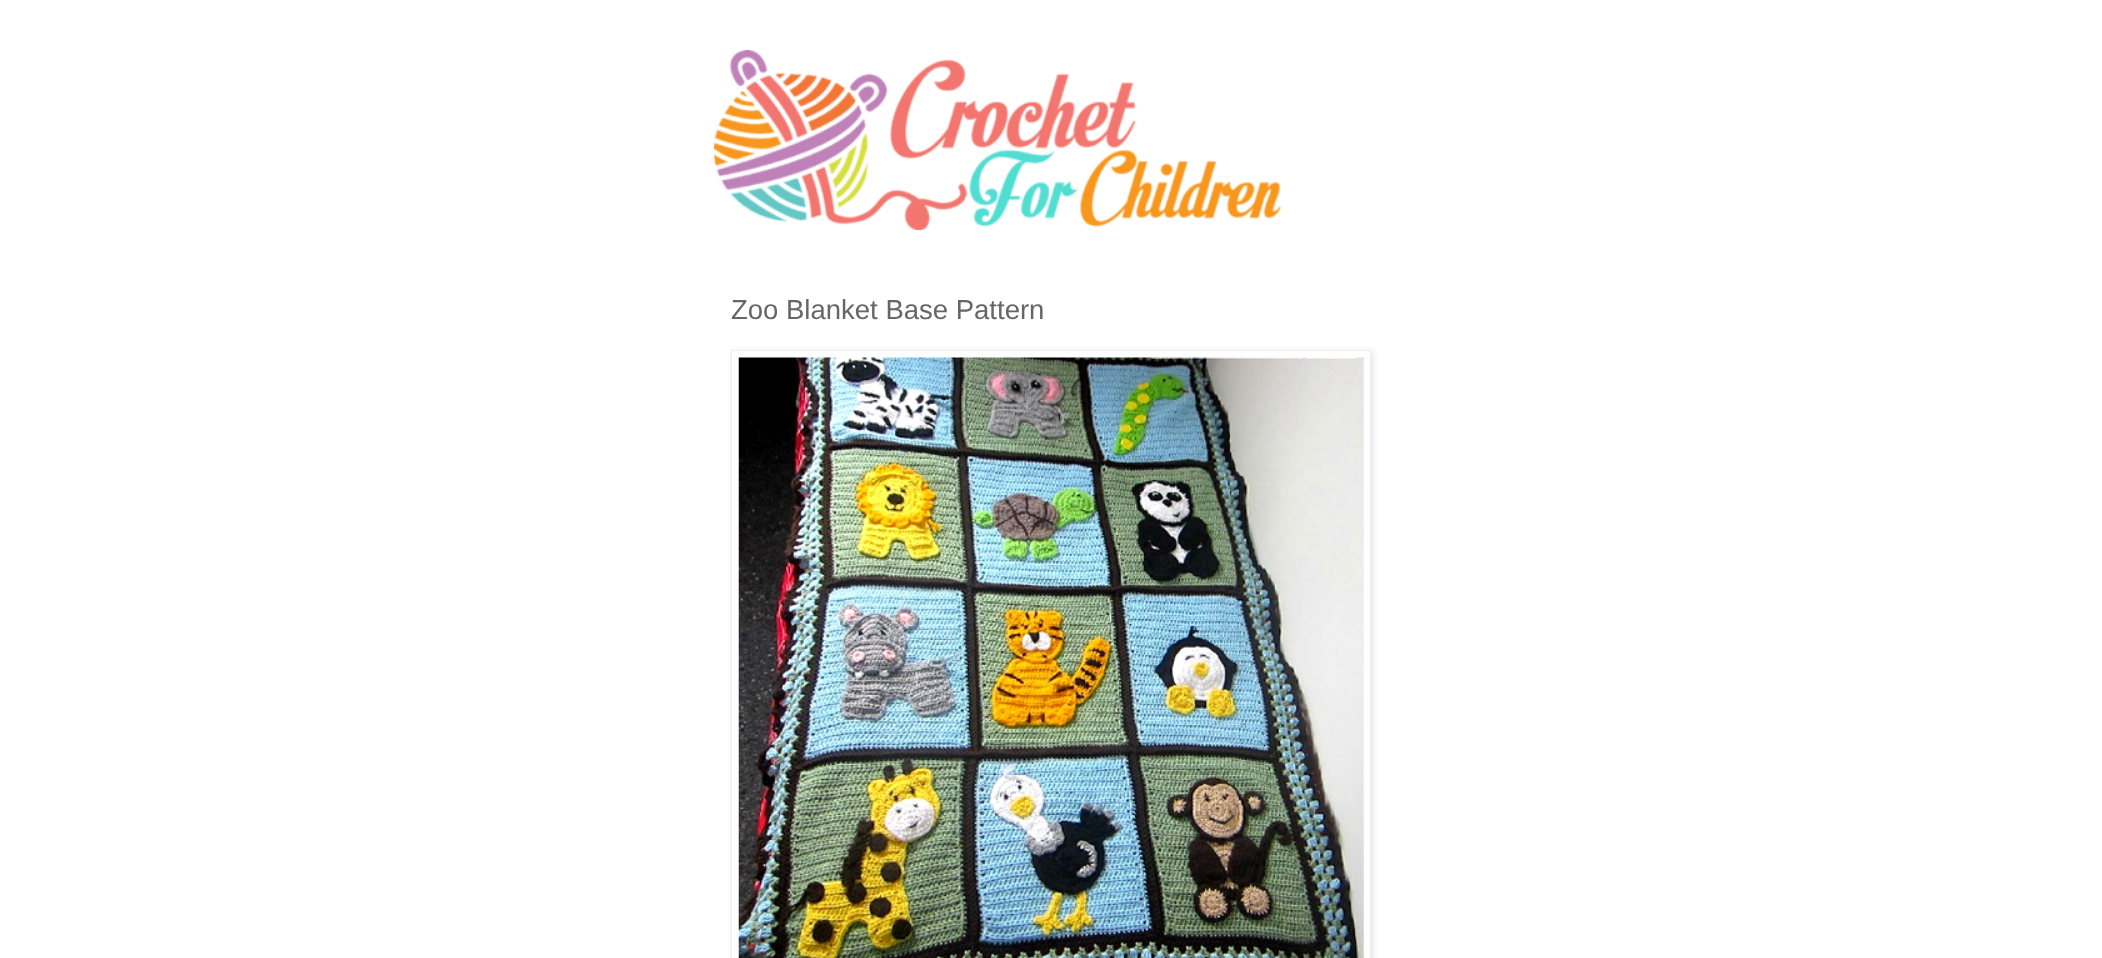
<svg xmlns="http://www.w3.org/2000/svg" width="2102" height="958">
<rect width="100%" height="100%" fill="#fff"/>
<image x="713" y="50" width="569" height="180" href="media/1.png"/>
<text x="731" y="319" style="font-family:Liberation Sans;font-size:27.5px;fill:#666">Zoo Blanket Base Pattern</text>
<rect x="733" y="351" width="640" height="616" fill="#0000001a" filter="blur(3px)"/>
<rect x="731.5" y="350.5" width="639" height="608" fill="#fff" stroke="#eee"/>
<image x="738" y="357" width="626" height="601" href="media/2.png"/>
</svg>
